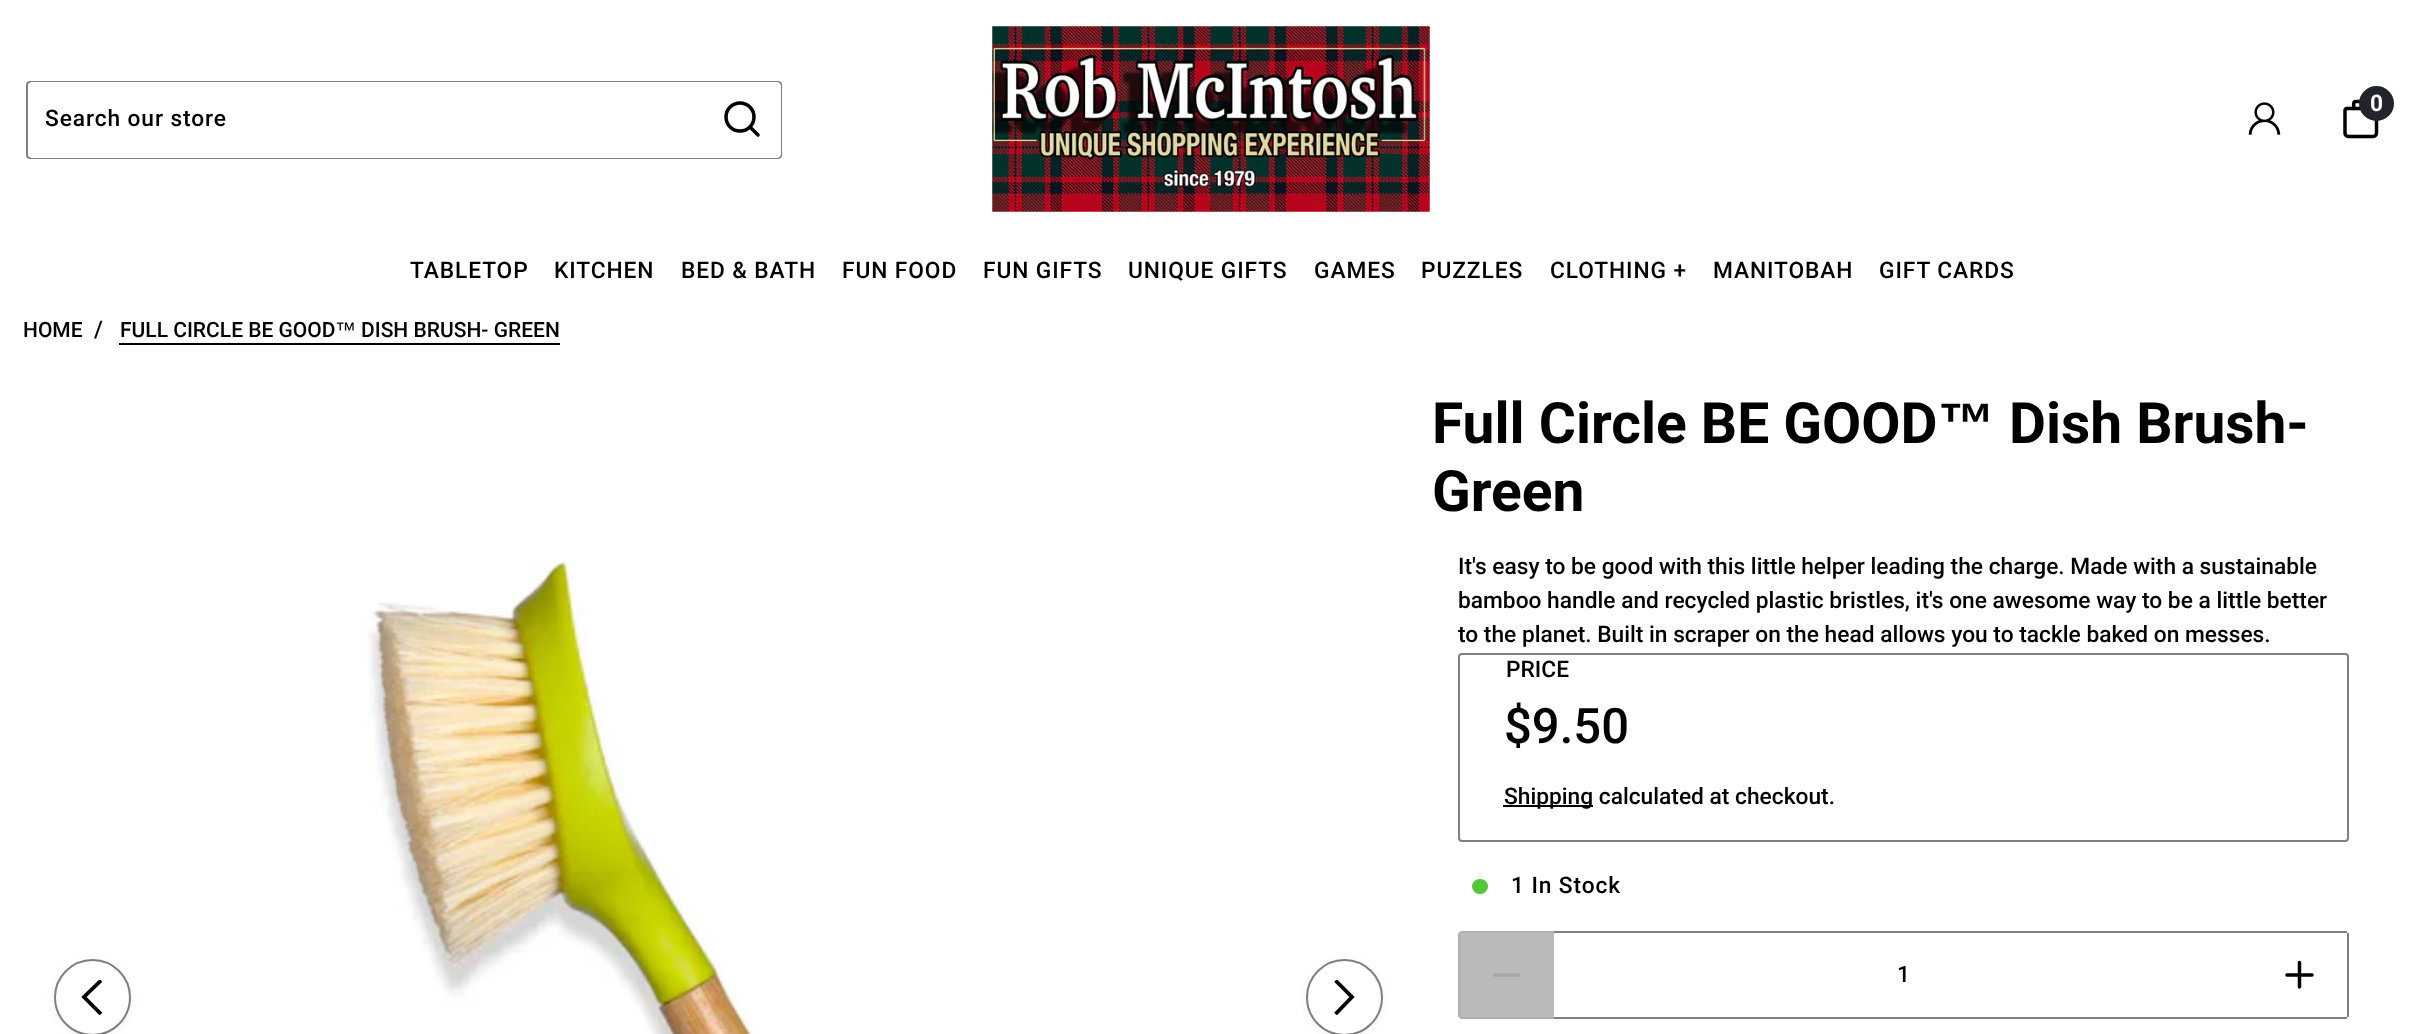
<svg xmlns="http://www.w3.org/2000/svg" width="2423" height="1034">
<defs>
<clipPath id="clip1"><rect x="75" y="980" width="35" height="35"/></clipPath>
<clipPath id="clip2"><rect x="1327" y="980" width="35" height="35"/></clipPath>
</defs>
<rect width="100%" height="100%" fill="#fff"/>
<image x="992" y="26" width="438" height="186" href="media/1.png"/>
<image x="2248" y="102" width="33" height="33" href="media/2.png"/>
<image x="2343" y="99" width="36" height="40" href="media/3.png"/>
<circle cx="2376.5" cy="103.5" r="16.5" fill="#212529" stroke="#212529" stroke-width="2"/>
<text x="2370" y="111" style="font-family:Roboto;font-size:22.75px;font-weight:bold;fill:#fafafa">0</text>
<rect x="27" y="82" width="754" height="76" rx="3" fill="none" stroke="#808080" stroke-width="2"/>
<path d="M32 82h675v76h-675c-2 0-4-2-4-4v-68c0-2 2-4 4-4z" fill="#fff"/>
<text x="45" y="126" style="font-family:Roboto;font-size:22.75px;font-weight:500;letter-spacing:0.9px;fill:#000">Search our store</text>
<path d="M707 82h70c2 0 4 2 4 4v68c0 2-2 4-4 4h-70z" fill="#fff"/>
<circle cx="740" cy="117" r="14" fill="none" stroke="#000" stroke-width="3.5"/>
<path d="M758 135l-8-8" fill="none" stroke="#000" stroke-width="3.5" stroke-linecap="round" stroke-linejoin="round"/>
<text x="410" y="278" style="font-family:Roboto;font-size:22.75px;font-weight:500;letter-spacing:0.9px;fill:#000">TABLETOP</text>
<text x="554" y="278" style="font-family:Roboto;font-size:22.75px;font-weight:500;letter-spacing:0.9px;fill:#000">KITCHEN</text>
<text x="681" y="278" style="font-family:Roboto;font-size:22.75px;font-weight:500;letter-spacing:0.9px;fill:#000">BED &amp; BATH</text>
<text x="842" y="278" style="font-family:Roboto;font-size:22.75px;font-weight:500;letter-spacing:0.9px;fill:#000">FUN FOOD</text>
<text x="983" y="278" style="font-family:Roboto;font-size:22.75px;font-weight:500;letter-spacing:0.9px;fill:#000">FUN GIFTS</text>
<text x="1128" y="278" style="font-family:Roboto;font-size:22.75px;font-weight:500;letter-spacing:0.9px;fill:#000">UNIQUE GIFTS</text>
<text x="1314" y="278" style="font-family:Roboto;font-size:22.75px;font-weight:500;letter-spacing:0.9px;fill:#000">GAMES</text>
<text x="1421" y="278" style="font-family:Roboto;font-size:22.75px;font-weight:500;letter-spacing:0.9px;fill:#000">PUZZLES</text>
<text x="1550" y="278" style="font-family:Roboto;font-size:22.75px;font-weight:500;letter-spacing:0.9px;fill:#000">CLOTHING +</text>
<text x="1713" y="278" style="font-family:Roboto;font-size:22.75px;font-weight:500;letter-spacing:0.9px;fill:#000">MANITOBAH</text>
<text x="1879" y="278" style="font-family:Roboto;font-size:22.75px;font-weight:500;letter-spacing:0.9px;fill:#000">GIFT CARDS</text>
<text x="23" y="337" style="font-family:Roboto;font-size:21px;font-weight:500;fill:#000">HOME</text>
<text x="94" y="337" style="font-family:Roboto;font-size:22.75px;font-weight:500;fill:#000">/</text>
<text x="120" y="337" style="font-family:Roboto;font-size:21px;font-weight:500;fill:#000">FULL CIRCLE BE GOOD</text>
<rect x="119" y="343" width="441" height="2" fill="#000"/>
<text x="335" y="337" style="font-family:Liberation Sans;font-size:21px;fill:#000">™</text>
<text x="361" y="337" style="font-family:Roboto;font-size:21px;font-weight:500;fill:#000">DISH BRUSH- GREEN</text>
<image x="367" y="560" width="386" height="474" href="media/4.png"/>
<rect x="54" y="961" width="77" height="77" rx="38.5" fill="#0000000d" filter="blur(4.5px)"/>
<circle cx="92.5" cy="997.5" r="37.5" fill="#fff" stroke="#7f7f7f" stroke-width="2"/>
<g clip-path="url(#clip1)">
<path d="M101 1014l-17-17l17-16.5" fill="none" stroke="#000" stroke-width="3.8"/>
</g>
<rect x="1306" y="961" width="77" height="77" rx="38.5" fill="#0000000d" filter="blur(4.5px)"/>
<circle cx="1344.5" cy="997.5" r="38.5" fill="#fff"/>
<circle cx="1344.5" cy="997.5" r="37.5" fill="none" stroke="#00000080" stroke-width="2"/>
<g clip-path="url(#clip2)">
<path d="M1335.5 980.5l16.5 16.5l-16.5 17" fill="none" stroke="#000" stroke-width="3.8"/>
</g>
<text x="1432" y="443" style="font-family:Roboto;font-size:56.9px;font-weight:bold;fill:#000">Full Circle BE GOOD</text>
<text x="1938" y="443" style="font-family:Liberation Sans;font-size:56.9px;font-weight:bold;fill:#000">™</text>
<text x="2009" y="443" style="font-family:Roboto;font-size:56.9px;font-weight:bold;fill:#000">Dish Brush-</text>
<text x="1432" y="511" style="font-family:Roboto;font-size:56.9px;font-weight:bold;fill:#000">Green</text>
<text x="1458" y="574" style="font-family:Roboto;font-size:22.75px;font-weight:500;fill:#000">It's easy to be good with this little helper leading the charge. Made with a sustainable</text>
<text x="1458" y="608" style="font-family:Roboto;font-size:22.75px;font-weight:500;fill:#000">bamboo handle and recycled plastic bristles, it's one awesome way to be a little better</text>
<text x="1458" y="642" style="font-family:Roboto;font-size:22.75px;font-weight:500;fill:#000">to the planet. Built in scraper on the head allows you to tackle baked on messes.</text>
<rect x="1459" y="654" width="889" height="187" rx="3" fill="none" stroke="#808080" stroke-width="2"/>
<text x="1506" y="677" style="font-family:Roboto;font-size:22.75px;font-weight:500;fill:#000">PRICE</text>
<text x="1504" y="743" style="font-family:Roboto;font-size:49px;font-weight:500;fill:#000">$9.50</text>
<rect x="1503" y="805" width="90" height="2" fill="#000"/>
<text x="1504" y="804" style="font-family:Roboto;font-size:22.75px;font-weight:500;fill:#000">Shipping calculated at checkout.</text>
<rect x="1472" y="879" width="16" height="15" rx="7.5" fill="#54c63a"/>
<text x="1511" y="893" style="font-family:Roboto;font-size:22.75px;font-weight:500;letter-spacing:0.9px;fill:#000">1 In Stock</text>
<path d="M1462 931h92v88h-92c-2 0-4-2-4-4v-80c0-2 2-4 4-4z" fill="#b8babc"/>
<rect x="1460" y="931" width="94" height="2" fill="#a6a6a680"/>
<rect x="1460" y="1017" width="94" height="2" fill="#a6a6a680"/>
<rect x="1458" y="933" width="2" height="84" fill="#a6a6a680"/>
<path d="M1494.5 975h24.5" fill="none" stroke="#a6a6a6" stroke-width="3.5" stroke-linecap="round" stroke-linejoin="round"/>
<rect x="1554" y="931" width="793" height="2" fill="#808080"/>
<rect x="1554" y="1017" width="793" height="2" fill="#808080"/>
<text x="1897" y="982" style="font-family:Roboto;font-size:22.75px;font-weight:500;fill:#000">1</text>
<rect x="2347" y="933" width="2" height="84" fill="#808080"/>
<path d="M2299.5 962.5v24.5m-12.5-12h25" fill="none" stroke="#000" stroke-width="3.5" stroke-linecap="round" stroke-linejoin="round"/>
</svg>
